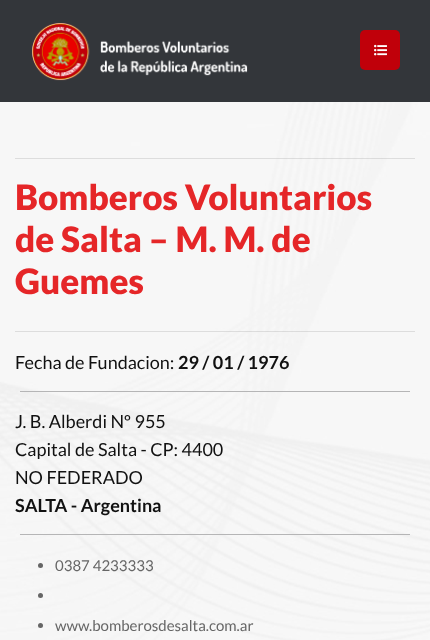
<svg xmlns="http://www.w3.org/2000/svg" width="430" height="640">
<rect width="100%" height="100%" fill="#fff"/>
<rect width="430" height="102" fill="#33363a"/>
<image x="32" y="23" width="216" height="58" href="media/1.png"/>
<rect x="360" y="30" width="40" height="40" rx="5" fill="#c0000a"/>
<image x="374" y="44" width="13" height="12" href="media/2.png"/>
<image x="0" y="102" width="430" height="538" href="media/3.png"/>
<rect x="15" y="158" width="400" height="1" fill="#0000001a"/>
<text x="15" y="210" style="font-family:Lato;font-size:35px;font-weight:900;fill:#e52628">Bomberos Voluntarios</text>
<text x="15" y="252" style="font-family:Lato;font-size:35px;font-weight:900;fill:#e52628">de Salta – M. M. de</text>
<text x="15" y="294" style="font-family:Lato;font-size:35px;font-weight:900;fill:#e52628">Guemes</text>
<rect x="15" y="331" width="400" height="1" fill="#0000001a"/>
<text x="15" y="369" style="font-family:Lato;font-size:18px;fill:#111">Fecha de Fundacion:</text>
<text x="178" y="369" style="font-family:Lato;font-size:18px;font-weight:bold;fill:#111">29 / 01 / 1976</text>
<rect x="20" y="391" width="390" height="1" fill="#b5b5b6"/>
<text x="15" y="428" style="font-family:Lato;font-size:18px;fill:#111">J. B. Alberdi Nº 955</text>
<text x="15" y="456" style="font-family:Lato;font-size:18px;fill:#111">Capital de Salta - CP: 4400</text>
<text x="15" y="484" style="font-family:Lato;font-size:18px;fill:#111">NO FEDERADO</text>
<text x="15" y="512" style="font-family:Lato;font-size:18px;font-weight:bold;fill:#111">SALTA - Argentina</text>
<rect x="20" y="534" width="390" height="1" fill="#b5b5b6"/>
<circle cx="40.5" cy="565.5" r="2.5" fill="#666"/>
<text x="55" y="571" style="font-family:Lato;font-size:15px;fill:#666">0387 4233333</text>
<circle cx="40.5" cy="595.5" r="2.5" fill="#666"/>
<circle cx="40.5" cy="625.5" r="2.5" fill="#666"/>
<text x="55" y="631" style="font-family:Lato;font-size:15px;fill:#666">www.bomberosdesalta.com.ar</text>
</svg>
